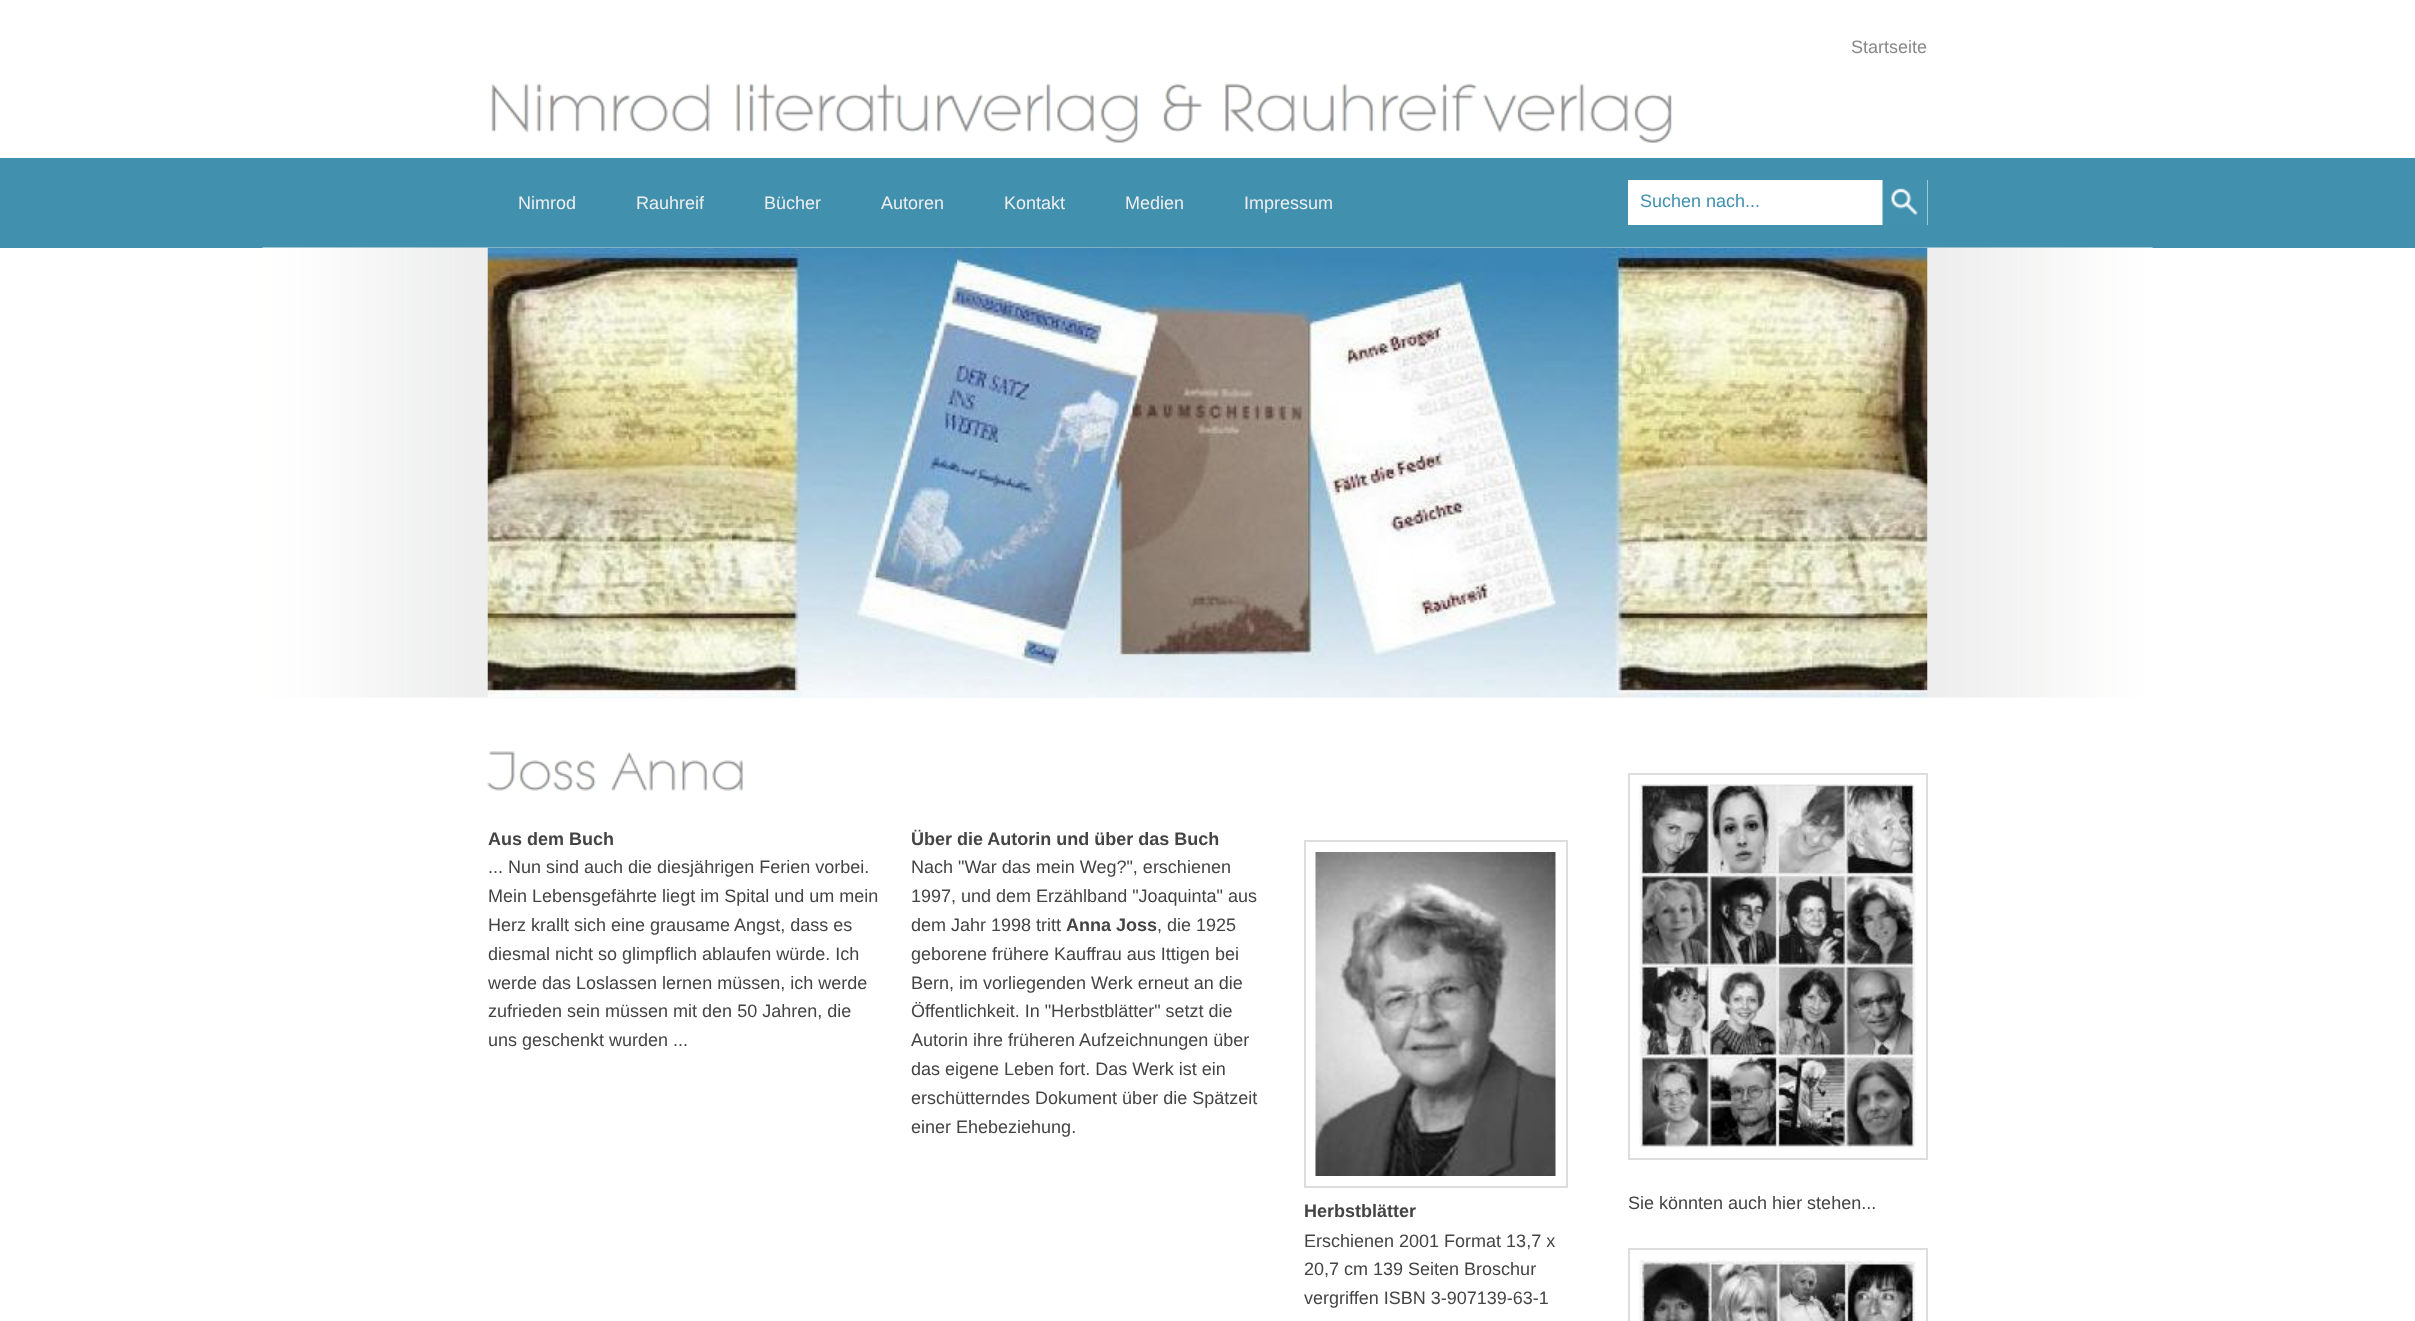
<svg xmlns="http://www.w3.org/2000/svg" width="2415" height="1321">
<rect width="100%" height="100%" fill="#fff"/>
<image x="491" y="83" width="1181" height="60" href="media/1.png"/>
<text x="1851" y="53" style="font-family:Liberation Sans;font-size:18px;fill:#888">Startseite</text>
<rect y="158" width="2415" height="90" fill="#4090ae"/>
<text x="518" y="209" style="font-family:Liberation Sans;font-size:18px;fill:#eee">Nimrod</text>
<text x="636" y="209" style="font-family:Liberation Sans;font-size:18px;fill:#eee">Rauhreif</text>
<text x="764" y="209" style="font-family:Liberation Sans;font-size:18px;fill:#eee">Bücher</text>
<text x="881" y="209" style="font-family:Liberation Sans;font-size:18px;fill:#eee">Autoren</text>
<text x="1004" y="209" style="font-family:Liberation Sans;font-size:18px;fill:#eee">Kontakt</text>
<text x="1125" y="209" style="font-family:Liberation Sans;font-size:18px;fill:#eee">Medien</text>
<text x="1244" y="209" style="font-family:Liberation Sans;font-size:18px;fill:#eee">Impressum</text>
<rect x="1628" y="180" width="300" height="45" fill="#fff"/>
<text x="1640" y="207" style="font-family:Liberation Sans;font-size:18px;fill:#4090ae">Suchen nach...</text>
<image x="1882" y="180" width="46" height="45" href="media/2.png"/>
<image x="262" y="247" width="1891" height="451" href="media/3.png"/>
<image x="487" y="247" width="1441" height="451" href="media/4.png"/>
<image x="487" y="751" width="256" height="40" href="media/5.png"/>
<text x="488" y="845" style="font-family:Liberation Sans;font-size:18px;font-weight:bold;fill:#444">Aus dem Buch</text>
<text x="488" y="873" style="font-family:Liberation Sans;font-size:18px;fill:#444">... Nun sind auch die diesjährigen Ferien vorbei.</text>
<text x="488" y="902" style="font-family:Liberation Sans;font-size:18px;fill:#444">Mein Lebensgefährte liegt im Spital und um mein</text>
<text x="488" y="931" style="font-family:Liberation Sans;font-size:18px;fill:#444">Herz krallt sich eine grausame Angst, dass es</text>
<text x="488" y="960" style="font-family:Liberation Sans;font-size:18px;fill:#444">diesmal nicht so glimpflich ablaufen würde. Ich</text>
<text x="488" y="989" style="font-family:Liberation Sans;font-size:18px;fill:#444">werde das Loslassen lernen müssen, ich werde</text>
<text x="488" y="1017" style="font-family:Liberation Sans;font-size:18px;fill:#444">zufrieden sein müssen mit den 50 Jahren, die</text>
<text x="488" y="1046" style="font-family:Liberation Sans;font-size:18px;fill:#444">uns geschenkt wurden ...</text>
<text x="911" y="845" style="font-family:Liberation Sans;font-size:18px;font-weight:bold;fill:#444">Über die Autorin und über das Buch</text>
<text x="911" y="873" style="font-family:Liberation Sans;font-size:18px;fill:#444">Nach "War das mein Weg?", erschienen</text>
<text x="911" y="902" style="font-family:Liberation Sans;font-size:18px;fill:#444">1997, und dem Erzählband "Joaquinta" aus</text>
<text x="911" y="931" style="font-family:Liberation Sans;font-size:18px;fill:#444">dem Jahr 1998 tritt</text>
<text x="1066" y="931" style="font-family:Liberation Sans;font-size:18px;font-weight:bold;fill:#444">Anna Joss</text>
<text x="1157" y="931" style="font-family:Liberation Sans;font-size:18px;fill:#444">, die 1925</text>
<text x="911" y="960" style="font-family:Liberation Sans;font-size:18px;fill:#444">geborene frühere Kauffrau aus Ittigen bei</text>
<text x="911" y="989" style="font-family:Liberation Sans;font-size:18px;fill:#444">Bern, im vorliegenden Werk erneut an die</text>
<text x="911" y="1017" style="font-family:Liberation Sans;font-size:18px;fill:#444">Öffentlichkeit. In "Herbstblätter" setzt die</text>
<text x="911" y="1046" style="font-family:Liberation Sans;font-size:18px;fill:#444">Autorin ihre früheren Aufzeichnungen über</text>
<text x="911" y="1075" style="font-family:Liberation Sans;font-size:18px;fill:#444">das eigene Leben fort. Das Werk ist ein</text>
<text x="911" y="1104" style="font-family:Liberation Sans;font-size:18px;fill:#444">erschütterndes Dokument über die Spätzeit</text>
<text x="911" y="1133" style="font-family:Liberation Sans;font-size:18px;fill:#444">einer Ehebeziehung.</text>
<rect x="1305" y="841" width="262" height="346" fill="none" stroke="#ddd" stroke-width="2"/>
<image x="1315" y="852" width="241" height="324" href="media/6.png"/>
<text x="1304" y="1217" style="font-family:Liberation Sans;font-size:18px;font-weight:bold;fill:#444">Herbstblätter</text>
<text x="1304" y="1247" style="font-family:Liberation Sans;font-size:18px;fill:#444">Erschienen 2001 Format 13,7 x</text>
<text x="1304" y="1275" style="font-family:Liberation Sans;font-size:18px;fill:#444">20,7 cm 139 Seiten Broschur</text>
<text x="1304" y="1304" style="font-family:Liberation Sans;font-size:18px;fill:#444">vergriffen ISBN 3-907139-63-1</text>
<rect x="1629" y="774" width="298" height="385" fill="none" stroke="#ddd" stroke-width="2"/>
<image x="1639" y="784" width="277" height="364" href="media/7.png"/>
<text x="1628" y="1209" style="font-family:Liberation Sans;font-size:18px;fill:#444">Sie könnten auch hier stehen...</text>
<rect x="1629" y="1249" width="298" height="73" fill="none" stroke="#ddd" stroke-width="2"/>
<image x="1639" y="1260" width="277" height="61" href="media/8.png"/>
</svg>
